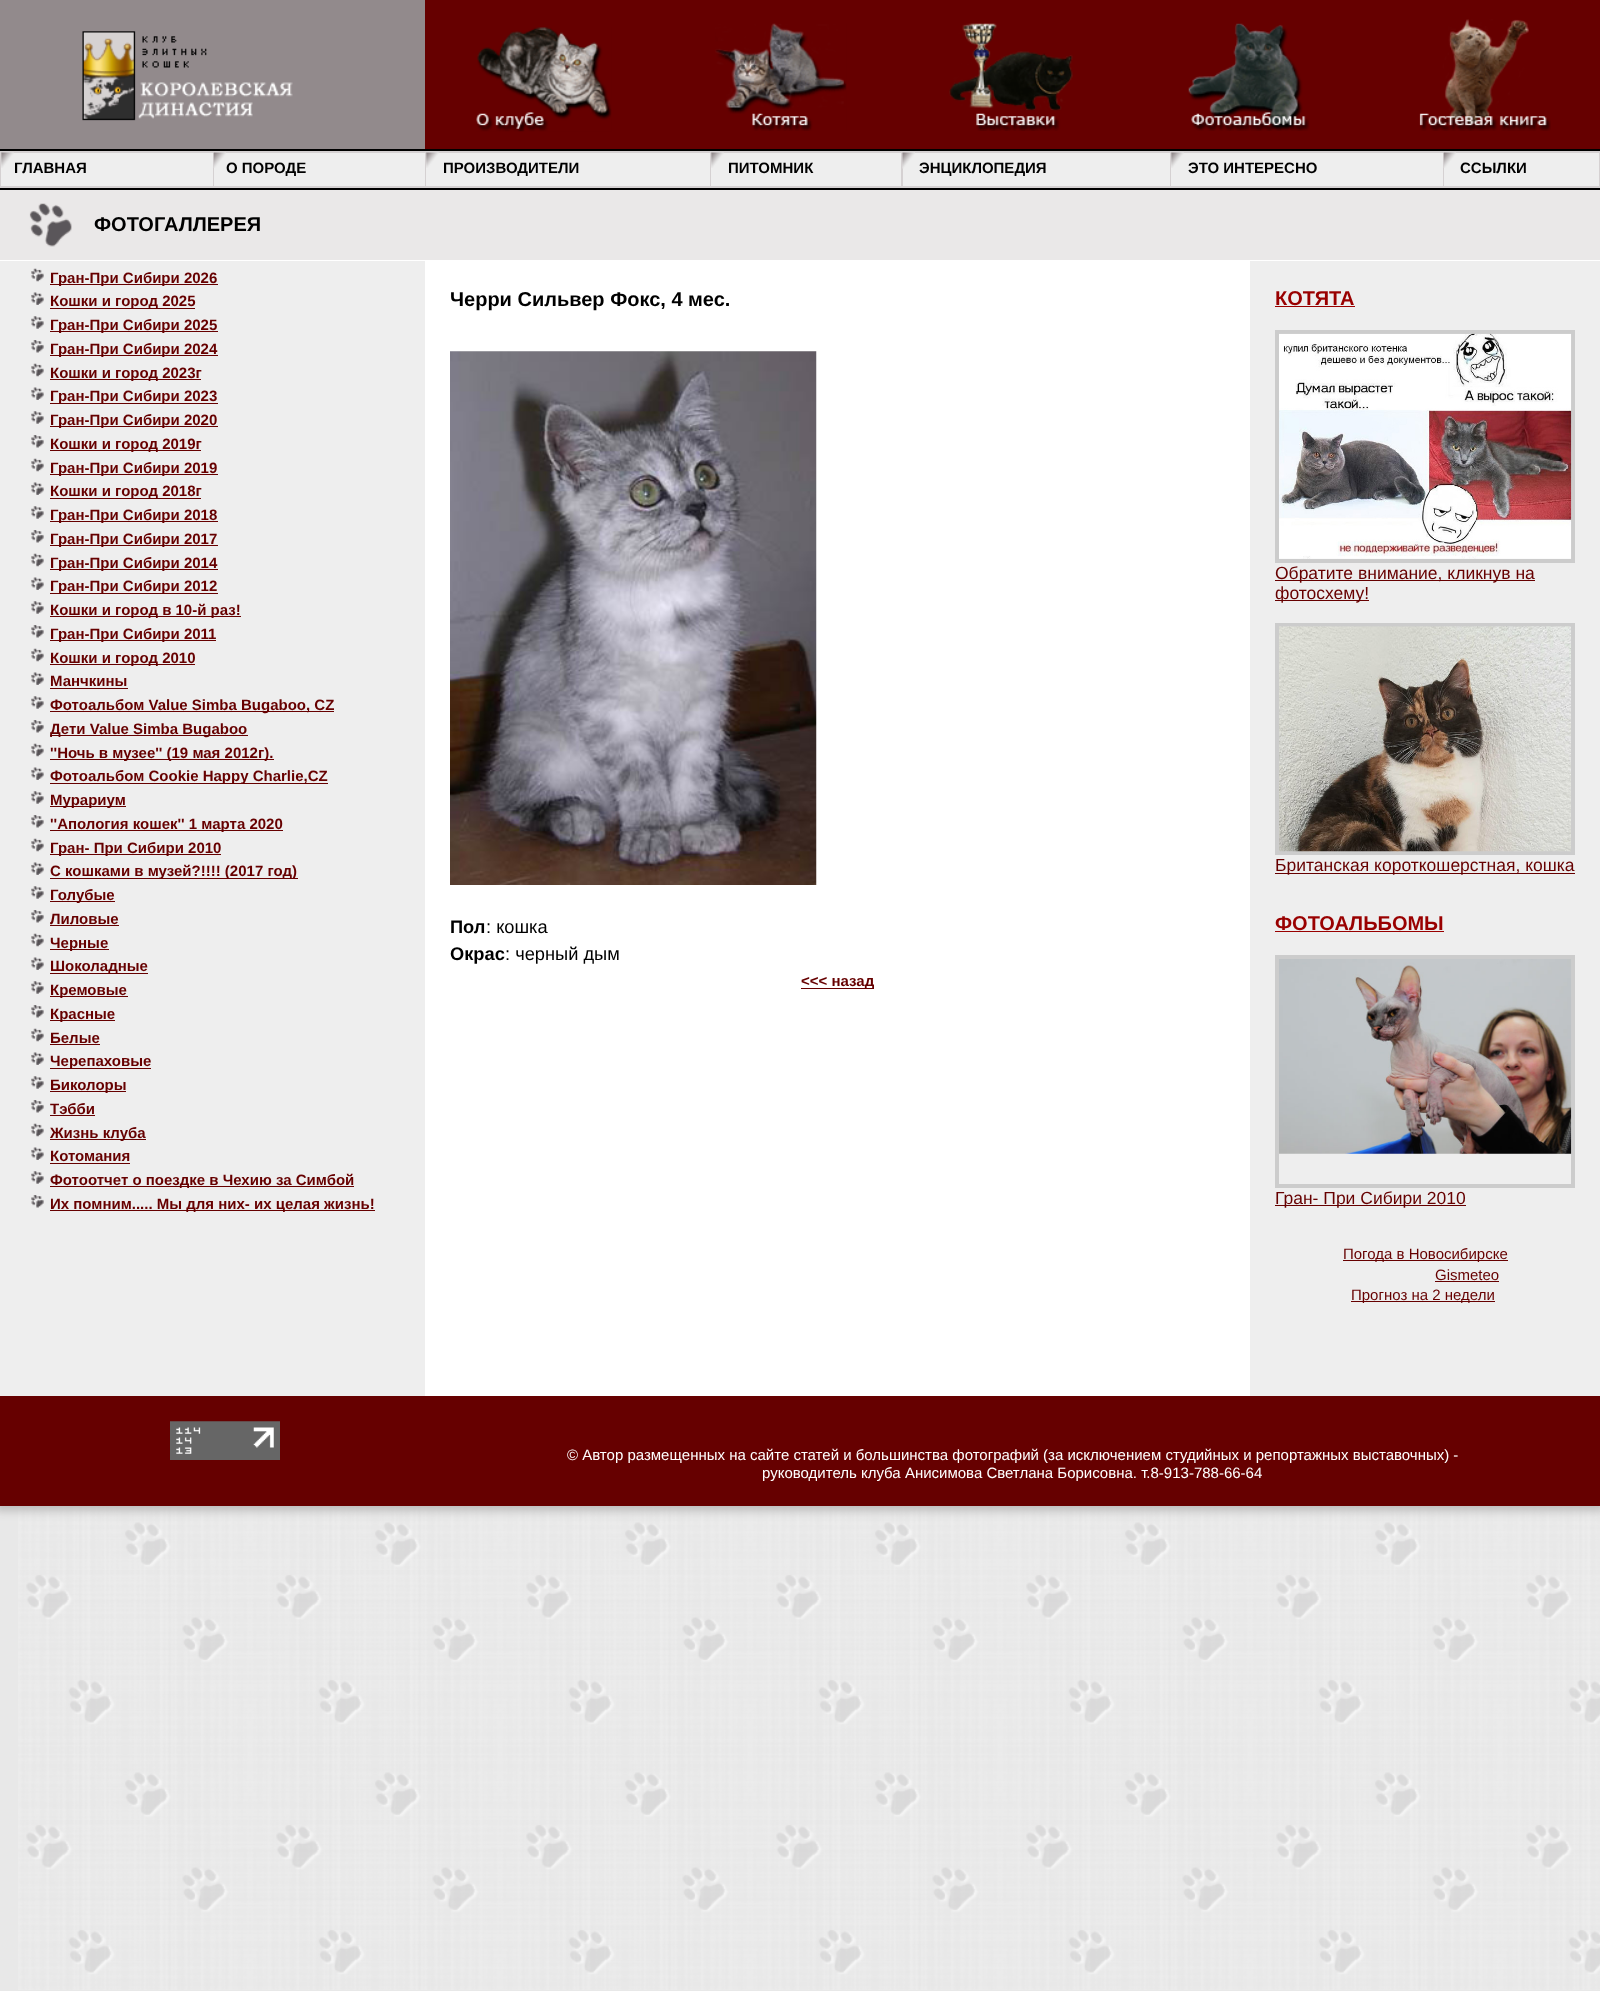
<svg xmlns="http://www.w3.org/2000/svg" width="1600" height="1991">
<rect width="100%" height="100%" fill="#e8e8e8"/>
<image x="18" y="1506" width="1582" height="484" href="media/1.png"/>
<rect x="-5" y="-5" width="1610" height="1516" fill="#bdbcbc" filter="blur(4px)"/>
<rect y="260" width="1600" height="1136" fill="#fff"/>
<rect width="425" height="149" fill="#928a8c"/>
<image x="82" y="31" width="211" height="90" href="media/2.png"/>
<rect x="425" width="1175" height="149" fill="#600"/>
<image x="476" y="27" width="136" height="105" href="media/3.png"/>
<image x="715" y="23" width="132" height="108" href="media/4.png"/>
<image x="949" y="23" width="124" height="108" href="media/5.png"/>
<image x="1188" y="23" width="122" height="108" href="media/6.png"/>
<image x="1419" y="19" width="132" height="112" href="media/7.png"/>
<rect y="149" width="1600" height="2" fill="#000"/>
<rect y="151" width="1600" height="37" fill="#d5d1d2"/>
<rect x="1" y="153" width="212" height="33" fill="#eee"/>
<image x="1" y="152" width="13" height="16" href="media/8.png"/>
<text x="14" y="173" style="font-family:Liberation Sans;font-size:15px;font-weight:bold;fill:#000">ГЛАВНАЯ</text>
<rect x="214" y="153" width="211" height="33" fill="#eee"/>
<image x="213" y="152" width="13" height="16" href="media/9.png"/>
<text x="226" y="173" style="font-family:Liberation Sans;font-size:15px;font-weight:bold;fill:#000">О ПОРОДЕ</text>
<rect x="426" y="153" width="284" height="33" fill="#eee"/>
<image x="426" y="152" width="13" height="16" href="media/8.png"/>
<text x="443" y="173" style="font-family:Liberation Sans;font-size:15px;font-weight:bold;fill:#000">ПРОИЗВОДИТЕЛИ</text>
<rect x="711" y="153" width="190" height="33" fill="#eee"/>
<image x="711" y="152" width="13" height="16" href="media/8.png"/>
<text x="728" y="173" style="font-family:Liberation Sans;font-size:15px;font-weight:bold;fill:#000">ПИТОМНИК</text>
<rect x="903" y="153" width="267" height="33" fill="#eee"/>
<image x="902" y="152" width="13" height="17" href="media/10.png"/>
<text x="919" y="173" style="font-family:Liberation Sans;font-size:15px;font-weight:bold;fill:#000">ЭНЦИКЛОПЕДИЯ</text>
<rect x="1171" y="153" width="272" height="33" fill="#eee"/>
<image x="1171" y="152" width="13" height="16" href="media/8.png"/>
<text x="1188" y="173" style="font-family:Liberation Sans;font-size:15px;font-weight:bold;fill:#000">ЭТО ИНТЕРЕСНО</text>
<rect x="1444" y="153" width="155" height="33" fill="#eee"/>
<image x="1443" y="152" width="13" height="16" href="media/9.png"/>
<text x="1460" y="173" style="font-family:Liberation Sans;font-size:15px;font-weight:bold;fill:#000">ССЫЛКИ</text>
<rect y="188" width="1600" height="2" fill="#000"/>
<rect y="190" width="1600" height="70" fill="#eae8e8"/>
<image x="29" y="203" width="43" height="44" href="media/11.png"/>
<text x="94" y="231" style="font-family:Liberation Sans;font-size:20px;font-weight:bold;fill:#000">ФОТОГАЛЛЕРЕЯ</text>
<rect y="261" width="425" height="1135" fill="#eee"/>
<image x="31" y="268" width="13" height="14" href="media/12.png"/>
<rect x="50" y="284" width="168" height="1" fill="#600"/>
<text x="50" y="283" style="font-family:Liberation Sans;font-size:15px;font-weight:bold;fill:#600">Гран-При Сибири 2026</text>
<image x="31" y="292" width="13" height="13" href="media/13.png"/>
<rect x="50" y="308" width="145" height="1" fill="#600"/>
<text x="50" y="306" style="font-family:Liberation Sans;font-size:15px;font-weight:bold;fill:#600">Кошки и город 2025</text>
<image x="31" y="316" width="13" height="13" href="media/14.png"/>
<rect x="50" y="331" width="168" height="1" fill="#600"/>
<text x="50" y="330" style="font-family:Liberation Sans;font-size:15px;font-weight:bold;fill:#600">Гран-При Сибири 2025</text>
<image x="31" y="340" width="13" height="13" href="media/15.png"/>
<rect x="50" y="355" width="168" height="1" fill="#600"/>
<text x="50" y="354" style="font-family:Liberation Sans;font-size:15px;font-weight:bold;fill:#600">Гран-При Сибири 2024</text>
<image x="31" y="363" width="13" height="14" href="media/12.png"/>
<rect x="50" y="379" width="151" height="1" fill="#600"/>
<text x="50" y="378" style="font-family:Liberation Sans;font-size:15px;font-weight:bold;fill:#600">Кошки и город 2023г</text>
<image x="31" y="387" width="13" height="13" href="media/16.png"/>
<rect x="50" y="403" width="168" height="1" fill="#600"/>
<text x="50" y="401" style="font-family:Liberation Sans;font-size:15px;font-weight:bold;fill:#600">Гран-При Сибири 2023</text>
<image x="31" y="411" width="13" height="13" href="media/14.png"/>
<rect x="50" y="426" width="168" height="1" fill="#600"/>
<text x="50" y="425" style="font-family:Liberation Sans;font-size:15px;font-weight:bold;fill:#600">Гран-При Сибири 2020</text>
<image x="31" y="435" width="13" height="13" href="media/15.png"/>
<rect x="50" y="450" width="151" height="1" fill="#600"/>
<text x="50" y="449" style="font-family:Liberation Sans;font-size:15px;font-weight:bold;fill:#600">Кошки и город 2019г</text>
<image x="31" y="458" width="13" height="14" href="media/12.png"/>
<rect x="50" y="474" width="168" height="1" fill="#600"/>
<text x="50" y="473" style="font-family:Liberation Sans;font-size:15px;font-weight:bold;fill:#600">Гран-При Сибири 2019</text>
<image x="31" y="482" width="13" height="13" href="media/16.png"/>
<rect x="50" y="498" width="151" height="1" fill="#600"/>
<text x="50" y="496" style="font-family:Liberation Sans;font-size:15px;font-weight:bold;fill:#600">Кошки и город 2018г</text>
<image x="31" y="506" width="13" height="13" href="media/14.png"/>
<rect x="50" y="521" width="168" height="1" fill="#600"/>
<text x="50" y="520" style="font-family:Liberation Sans;font-size:15px;font-weight:bold;fill:#600">Гран-При Сибири 2018</text>
<image x="31" y="530" width="13" height="13" href="media/15.png"/>
<rect x="50" y="545" width="168" height="1" fill="#600"/>
<text x="50" y="544" style="font-family:Liberation Sans;font-size:15px;font-weight:bold;fill:#600">Гран-При Сибири 2017</text>
<image x="31" y="553" width="13" height="14" href="media/12.png"/>
<rect x="50" y="569" width="168" height="1" fill="#600"/>
<text x="50" y="568" style="font-family:Liberation Sans;font-size:15px;font-weight:bold;fill:#600">Гран-При Сибири 2014</text>
<image x="31" y="577" width="13" height="13" href="media/16.png"/>
<rect x="50" y="593" width="168" height="1" fill="#600"/>
<text x="50" y="591" style="font-family:Liberation Sans;font-size:15px;font-weight:bold;fill:#600">Гран-При Сибири 2012</text>
<image x="31" y="601" width="13" height="13" href="media/14.png"/>
<rect x="50" y="616" width="191" height="1" fill="#600"/>
<text x="50" y="615" style="font-family:Liberation Sans;font-size:15px;font-weight:bold;fill:#600">Кошки и город в 10-й раз!</text>
<image x="31" y="625" width="13" height="13" href="media/15.png"/>
<rect x="50" y="640" width="166" height="1" fill="#600"/>
<text x="50" y="639" style="font-family:Liberation Sans;font-size:15px;font-weight:bold;fill:#600">Гран-При Сибири 2011</text>
<image x="31" y="648" width="13" height="14" href="media/12.png"/>
<rect x="50" y="664" width="145" height="1" fill="#600"/>
<text x="50" y="663" style="font-family:Liberation Sans;font-size:15px;font-weight:bold;fill:#600">Кошки и город 2010</text>
<image x="31" y="672" width="13" height="13" href="media/16.png"/>
<text x="50" y="686" style="font-family:Liberation Sans;font-size:15px;font-weight:bold;fill:#600">Манчкины</text>
<rect x="50" y="688" width="78" height="1" fill="#600"/>
<image x="31" y="696" width="13" height="13" href="media/14.png"/>
<rect x="50" y="711" width="284" height="1" fill="#600"/>
<text x="50" y="710" style="font-family:Liberation Sans;font-size:15px;font-weight:bold;fill:#600">Фотоальбом Value Simba Bugaboo, CZ</text>
<image x="31" y="720" width="13" height="13" href="media/15.png"/>
<rect x="50" y="735" width="198" height="1" fill="#600"/>
<text x="50" y="734" style="font-family:Liberation Sans;font-size:15px;font-weight:bold;fill:#600">Дети Value Simba Bugaboo</text>
<image x="31" y="743" width="13" height="14" href="media/12.png"/>
<rect x="50" y="759" width="224" height="1" fill="#600"/>
<text x="50" y="758" style="font-family:Liberation Sans;font-size:15px;font-weight:bold;fill:#600">''Ночь в музее'' (19 мая 2012г).</text>
<image x="31" y="767" width="13" height="13" href="media/16.png"/>
<rect x="50" y="783" width="278" height="1" fill="#600"/>
<text x="50" y="781" style="font-family:Liberation Sans;font-size:15px;font-weight:bold;fill:#600">Фотоальбом Cookie Happy Charlie,CZ</text>
<image x="31" y="791" width="13" height="13" href="media/14.png"/>
<rect x="50" y="806" width="76" height="1" fill="#600"/>
<text x="50" y="805" style="font-family:Liberation Sans;font-size:15px;font-weight:bold;fill:#600">Мурариум</text>
<image x="31" y="815" width="13" height="13" href="media/15.png"/>
<rect x="50" y="830" width="233" height="1" fill="#600"/>
<text x="50" y="829" style="font-family:Liberation Sans;font-size:15px;font-weight:bold;fill:#600">''Апология кошек'' 1 марта 2020</text>
<image x="31" y="838" width="13" height="14" href="media/12.png"/>
<rect x="50" y="854" width="171" height="1" fill="#600"/>
<text x="50" y="853" style="font-family:Liberation Sans;font-size:15px;font-weight:bold;fill:#600">Гран- При Сибири 2010</text>
<image x="31" y="862" width="13" height="13" href="media/16.png"/>
<rect x="50" y="878" width="248" height="1" fill="#600"/>
<text x="50" y="876" style="font-family:Liberation Sans;font-size:15px;font-weight:bold;fill:#600">C кошками в музей?!!!! (2017 год)</text>
<image x="31" y="886" width="13" height="13" href="media/14.png"/>
<rect x="50" y="901" width="65" height="1" fill="#600"/>
<text x="50" y="900" style="font-family:Liberation Sans;font-size:15px;font-weight:bold;fill:#600">Голубые</text>
<image x="31" y="910" width="13" height="13" href="media/15.png"/>
<text x="50" y="924" style="font-family:Liberation Sans;font-size:15px;font-weight:bold;fill:#600">Лиловые</text>
<rect x="50" y="925" width="69" height="1" fill="#600"/>
<image x="31" y="933" width="13" height="14" href="media/12.png"/>
<rect x="50" y="949" width="59" height="1" fill="#600"/>
<text x="50" y="948" style="font-family:Liberation Sans;font-size:15px;font-weight:bold;fill:#600">Черные</text>
<image x="31" y="957" width="13" height="13" href="media/16.png"/>
<rect x="50" y="973" width="98" height="1" fill="#600"/>
<text x="50" y="971" style="font-family:Liberation Sans;font-size:15px;font-weight:bold;fill:#600">Шоколадные</text>
<image x="31" y="981" width="13" height="13" href="media/14.png"/>
<rect x="50" y="996" width="78" height="1" fill="#600"/>
<text x="50" y="995" style="font-family:Liberation Sans;font-size:15px;font-weight:bold;fill:#600">Кремовые</text>
<image x="31" y="1005" width="13" height="13" href="media/15.png"/>
<rect x="50" y="1020" width="65" height="1" fill="#600"/>
<text x="50" y="1019" style="font-family:Liberation Sans;font-size:15px;font-weight:bold;fill:#600">Красные</text>
<image x="31" y="1028" width="13" height="14" href="media/12.png"/>
<text x="50" y="1043" style="font-family:Liberation Sans;font-size:15px;font-weight:bold;fill:#600">Белые</text>
<rect x="50" y="1044" width="50" height="1" fill="#600"/>
<image x="31" y="1052" width="13" height="13" href="media/16.png"/>
<rect x="50" y="1068" width="101" height="1" fill="#600"/>
<text x="50" y="1066" style="font-family:Liberation Sans;font-size:15px;font-weight:bold;fill:#600">Черепаховые</text>
<image x="31" y="1076" width="13" height="13" href="media/14.png"/>
<rect x="50" y="1091" width="76" height="1" fill="#600"/>
<text x="50" y="1090" style="font-family:Liberation Sans;font-size:15px;font-weight:bold;fill:#600">Биколоры</text>
<image x="31" y="1100" width="13" height="13" href="media/15.png"/>
<text x="50" y="1114" style="font-family:Liberation Sans;font-size:15px;font-weight:bold;fill:#600">Тэбби</text>
<rect x="50" y="1115" width="45" height="1" fill="#600"/>
<image x="31" y="1123" width="13" height="14" href="media/12.png"/>
<rect x="50" y="1139" width="96" height="1" fill="#600"/>
<text x="50" y="1138" style="font-family:Liberation Sans;font-size:15px;font-weight:bold;fill:#600">Жизнь клуба</text>
<image x="31" y="1147" width="13" height="13" href="media/16.png"/>
<text x="50" y="1161" style="font-family:Liberation Sans;font-size:15px;font-weight:bold;fill:#600">Котомания</text>
<rect x="50" y="1163" width="80" height="1" fill="#600"/>
<image x="31" y="1171" width="13" height="13" href="media/17.png"/>
<rect x="50" y="1186" width="304" height="1" fill="#600"/>
<text x="50" y="1185" style="font-family:Liberation Sans;font-size:15px;font-weight:bold;fill:#600">Фотоотчет о поездке в Чехию за Симбой</text>
<image x="31" y="1195" width="13" height="13" href="media/15.png"/>
<rect x="50" y="1210" width="325" height="1" fill="#600"/>
<text x="50" y="1209" style="font-family:Liberation Sans;font-size:15px;font-weight:bold;fill:#600">Их помним..... Мы для них- их целая жизнь!</text>
<text x="450" y="306" style="font-family:Liberation Sans;font-size:20px;font-weight:bold;fill:#000">Черри Сильвер Фокс, 4 мес.</text>
<image x="450" y="351" width="367" height="534" href="media/18.png"/>
<text x="450" y="933" style="font-family:Liberation Sans;font-size:18.25px;font-weight:bold;fill:#000">Пол</text>
<text x="486" y="933" style="font-family:Liberation Sans;font-size:18.25px;fill:#000">: кошка</text>
<text x="450" y="960" style="font-family:Liberation Sans;font-size:18.25px;font-weight:bold;fill:#000">Окрас</text>
<text x="505" y="960" style="font-family:Liberation Sans;font-size:18.25px;fill:#000">: черный дым</text>
<rect x="801" y="988" width="73" height="1" fill="#600"/>
<text x="801" y="986" style="font-family:Liberation Sans;font-size:15px;font-weight:bold;fill:#600">&lt;&lt;&lt; назад</text>
<rect x="1250" y="261" width="350" height="1135" fill="#eee"/>
<text x="1275" y="305" style="font-family:Liberation Sans;font-size:20px;font-weight:bold;fill:#900">КОТЯТА</text>
<rect x="1275" y="306" width="80" height="1" fill="#900"/>
<rect x="1277" y="332" width="296" height="229" fill="none" stroke="#ccc" stroke-width="4"/>
<image x="1279" y="333" width="293" height="226" href="media/19.png"/>
<rect x="1275" y="580" width="260" height="1" fill="#600"/>
<text x="1275" y="579" style="font-family:Liberation Sans;font-size:17.5px;fill:#600">Обратите внимание, кликнув на</text>
<rect x="1275" y="600" width="94" height="1" fill="#600"/>
<text x="1275" y="599" style="font-family:Liberation Sans;font-size:17.5px;fill:#600">фотосхему!</text>
<rect x="1277" y="625" width="296" height="228" fill="none" stroke="#ccc" stroke-width="4"/>
<image x="1279" y="626" width="292" height="226" href="media/20.png"/>
<rect x="1275" y="873" width="300" height="1" fill="#600"/>
<text x="1275" y="871" style="font-family:Liberation Sans;font-size:17.5px;fill:#600">Британская короткошерстная, кошка</text>
<text x="1275" y="930" style="font-family:Liberation Sans;font-size:20px;font-weight:bold;fill:#900">ФОТОАЛЬБОМЫ</text>
<rect x="1275" y="931" width="169" height="1" fill="#900"/>
<rect x="1277" y="957" width="296" height="229" fill="none" stroke="#ccc" stroke-width="4"/>
<image x="1279" y="959" width="293" height="195" href="media/21.png"/>
<rect x="1275" y="1205" width="191" height="1" fill="#600"/>
<text x="1275" y="1204" style="font-family:Liberation Sans;font-size:17.5px;fill:#600">Гран- При Сибири 2010</text>
<rect x="1343" y="1260" width="165" height="1" fill="#600"/>
<text x="1343" y="1259" style="font-family:Liberation Sans;font-size:15px;fill:#600">Погода в Новосибирске</text>
<text x="1435" y="1280" style="font-family:Liberation Sans;font-size:15px;fill:#600">Gismeteo</text>
<rect x="1435" y="1281" width="64" height="1" fill="#600"/>
<rect x="1351" y="1301" width="144" height="1" fill="#600"/>
<text x="1351" y="1300" style="font-family:Liberation Sans;font-size:15px;fill:#600">Прогноз на 2 недели</text>
<rect y="1396" width="1600" height="110" fill="#600"/>
<image x="170" y="1421" width="110" height="39" href="media/22.png"/>
<text x="567" y="1460" style="font-family:Liberation Sans;font-size:15px;fill:#fff">© Автор размещeнных на сайте cтатей и большинства фотографий (за исключением студийных и репортажных выставочных) -</text>
<text x="762" y="1478" style="font-family:Liberation Sans;font-size:15px;fill:#fff">руководитель клуба Анисимова Светлана Борисовна. т.8-913-788-66-64</text>
</svg>
